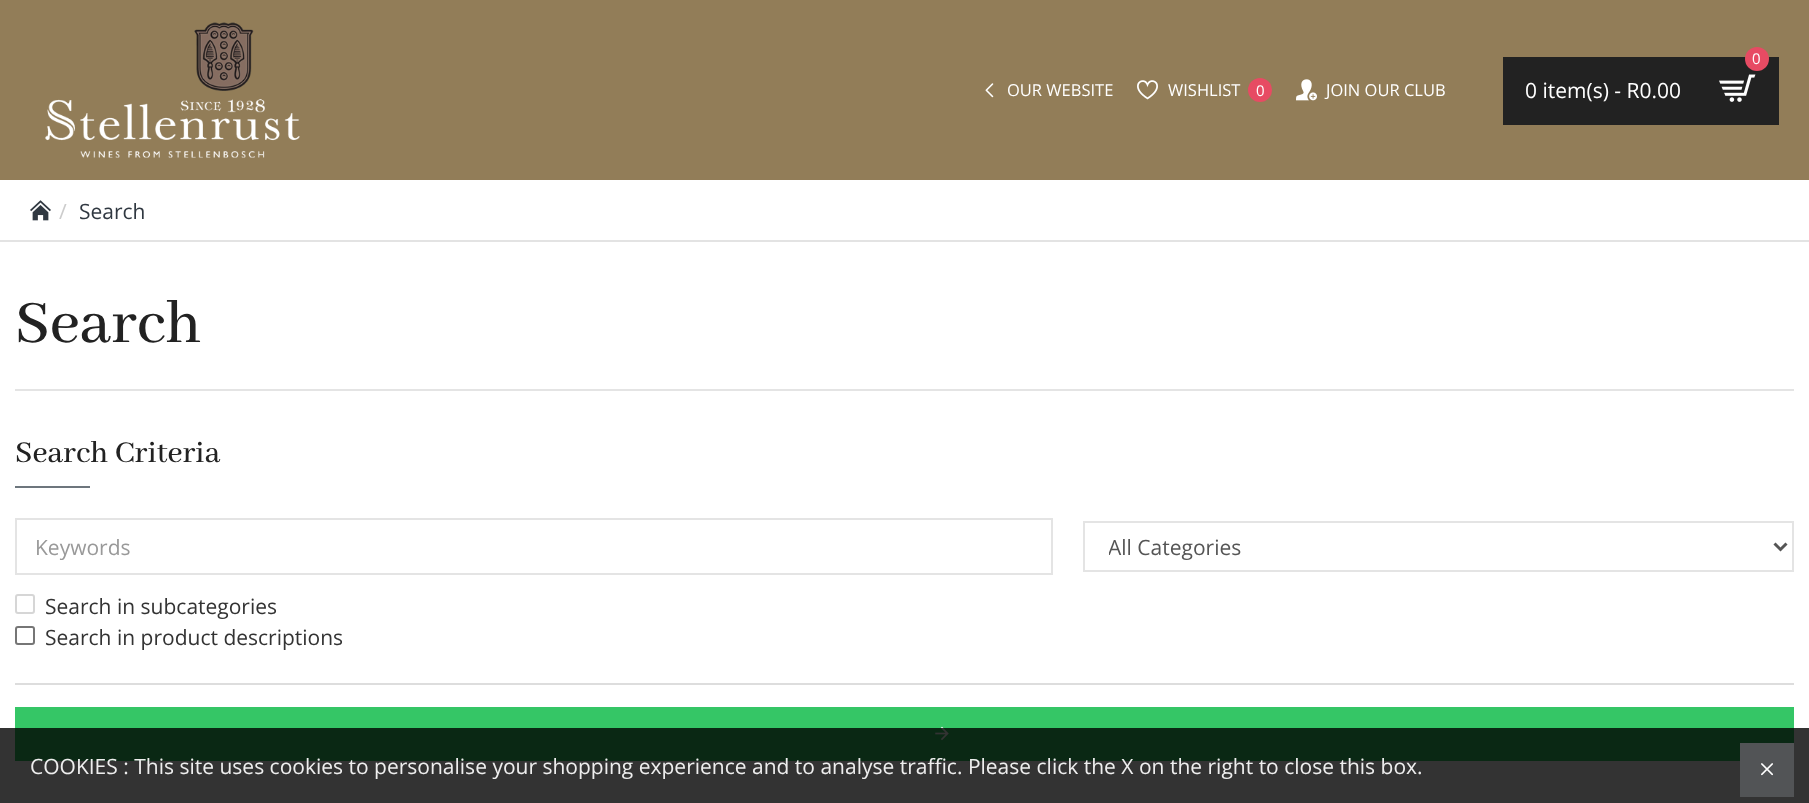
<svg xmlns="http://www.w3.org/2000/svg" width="1809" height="803">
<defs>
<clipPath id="clip1"><rect x="1109" y="531" width="642" height="32"/></clipPath>
</defs>
<rect width="100%" height="100%" fill="#fff"/>
<rect width="1809" height="180" fill="#927d58"/>
<image x="45" y="22" width="255" height="136" href="media/1.png"/>
<image x="985" y="83" width="9" height="15" href="media/2.png"/>
<text x="1007" y="96" style="font-family:Open Sans;font-size:16.5px;fill:#fff">OUR WEBSITE</text>
<image x="1137" y="80" width="21" height="20" href="media/3.png"/>
<text x="1168" y="96" style="font-family:Open Sans;font-size:16.5px;fill:#fff">WISHLIST</text>
<circle cx="1260" cy="90" r="12" fill="#e74b63"/>
<text x="1256" y="96" style="font-family:Open Sans;font-size:15px;fill:#fff">0</text>
<image x="1296" y="79" width="21" height="22" href="media/4.png"/>
<text x="1326" y="96" style="font-family:Open Sans;font-size:16.5px;fill:#fff">JOIN OUR CLUB</text>
<rect x="1503" y="57" width="276" height="68" fill="#222"/>
<circle cx="1757" cy="59" r="12" fill="#e74b63"/>
<text x="1752" y="64" style="font-family:Open Sans;font-size:15px;fill:#fff">0</text>
<text x="1525" y="98" style="font-family:Open Sans;font-size:21px;fill:#fff">0 item(s) - R0.00</text>
<image x="1719" y="74" width="37" height="28" href="media/5.png"/>
<image x="30" y="200" width="21" height="21" href="media/6.png"/>
<text x="59" y="219" style="font-family:Open Sans;font-size:21px;fill:#ccc">/</text>
<text x="79" y="219" style="font-family:Open Sans;font-size:21px;fill:#303841">Search</text>
<rect y="240" width="1809" height="2" fill="#e3e3e3"/>
<rect x="15" y="389" width="1779" height="2" fill="#e4e4e4"/>
<text x="15" y="342" style="font-family:Abhaya Libre Medium;font-size:66px;font-weight:500;fill:#222">Search</text>
<text x="15" y="462" style="font-family:Abhaya Libre Medium;font-size:33px;font-weight:500;fill:#222">Search Criteria</text>
<rect x="15" y="486" width="75" height="2" fill="#6d767d"/>
<rect x="16" y="519" width="1036" height="55" fill="none" stroke="#e4e4e4" stroke-width="2"/>
<text x="35" y="555" style="font-family:Open Sans;font-size:21px;fill:#999">Keywords</text>
<rect x="1084" y="522" width="709" height="49" fill="none" stroke="#e4e4e4" stroke-width="2"/>
<path d="M1774.5 543.5l6 6l6-6" fill="none" stroke="#555" stroke-width="3"/>
<g clip-path="url(#clip1)">
<text x="1108" y="555" style="font-family:Open Sans;font-size:21px;fill:#555">All Categories</text>
</g>
<rect x="16" y="595" width="18" height="18" rx="2" fill="none" stroke="#d6d6d6" stroke-width="2"/>
<text x="45" y="614" style="font-family:Open Sans;font-size:21px;fill:#333">Search in subcategories</text>
<rect x="16" y="627" width="18" height="17" rx="2" fill="none" stroke="#767676" stroke-width="2"/>
<text x="45" y="645" style="font-family:Open Sans;font-size:21px;fill:#333">Search in product descriptions</text>
<rect x="15" y="683" width="1779" height="2" fill="#ddd"/>
<rect x="15" y="707" width="1779" height="54" fill="#35c666"/>
<image x="935" y="726" width="14" height="15" href="media/7.png"/>
<rect y="728" width="1809" height="75" fill="#000000cc"/>
<text x="30" y="774" style="font-family:Open Sans;font-size:21px;fill:#eee">COOKIES : This site uses cookies to personalise your shopping experience and to analyse traffic. Please click the X on the right to close this box.</text>
<rect x="1740" y="743" width="54" height="54" fill="#525456"/>
<image x="1761" y="763" width="12" height="13" href="media/8.png"/>
</svg>
